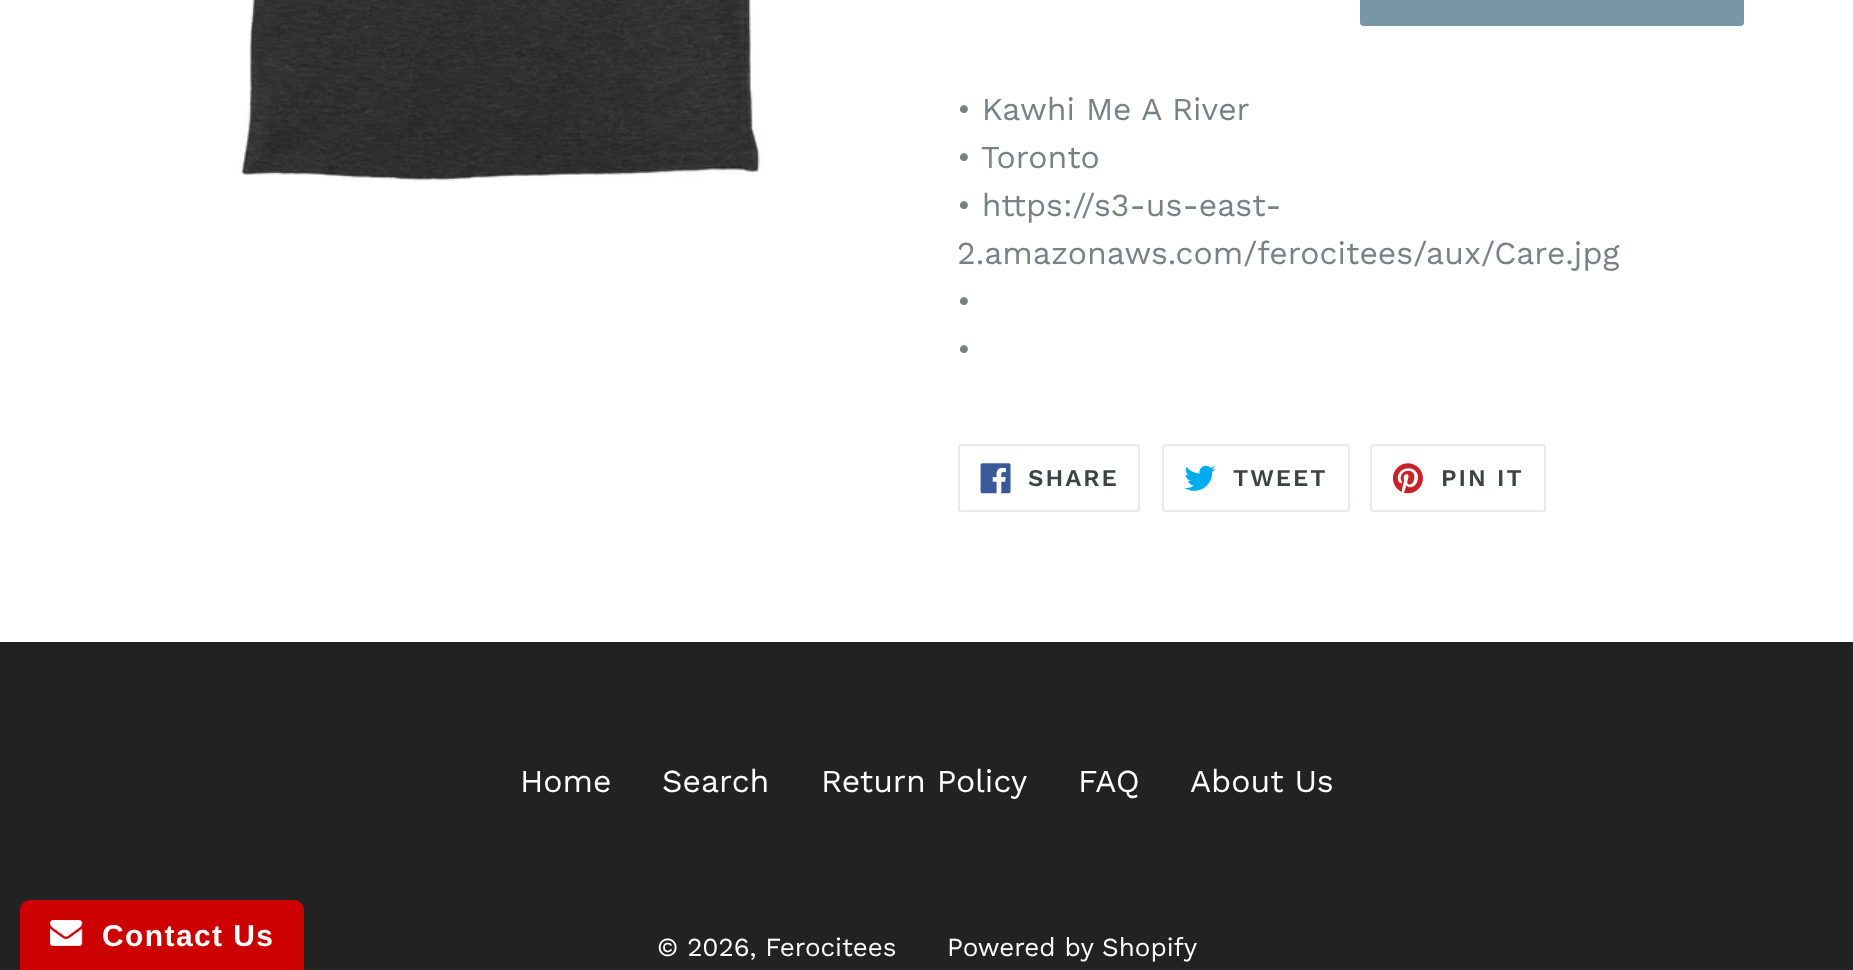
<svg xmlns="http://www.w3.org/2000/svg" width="1853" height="970">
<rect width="100%" height="100%" fill="#fff"/>
<rect y="642" width="1853" height="328" fill="#222"/>
<path d="M30 900h264c5.5 0 10 4.5 10 10v60h-284v-60c0-5.5 4.5-10 10-10z" fill="#c00"/>
<image x="50" y="920" width="33" height="26" href="media/1.png"/>
<text x="102" y="946" style="font-family:Liberation Sans;font-size:30px;font-weight:bold;letter-spacing:1.4px;fill:#fff">Contact Us</text>
<image x="239" y="0" width="524" height="181" href="media/2.png"/>
<rect x="1360" y="-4" width="384" height="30" rx="4" fill="#7796a8"/>
<text x="957" y="120" style="font-family:Work Sans;font-size:32px;fill:#788188">• Kawhi Me A River</text>
<text x="957" y="168" style="font-family:Work Sans;font-size:32px;fill:#788188">• Toronto</text>
<text x="957" y="216" style="font-family:Work Sans;font-size:32px;fill:#788188">• https://s3-us-east-</text>
<text x="957" y="264" style="font-family:Work Sans;font-size:32px;fill:#788188">2.amazonaws.com/ferocitees/aux/Care.jpg</text>
<text x="957" y="312" style="font-family:Work Sans;font-size:32px;fill:#788188">•</text>
<text x="957" y="360" style="font-family:Work Sans;font-size:32px;fill:#788188">•</text>
<rect x="959" y="445" width="180" height="66" rx="3" fill="none" stroke="#e8e9eb" stroke-width="2"/>
<image x="980" y="463" width="31" height="31" href="media/3.png"/>
<text x="1028" y="486" style="font-family:Work Sans;font-size:24px;font-weight:600;letter-spacing:2px;fill:#3d4246">SHARE</text>
<rect x="1163" y="445" width="186" height="66" rx="3" fill="none" stroke="#e8e9eb" stroke-width="2"/>
<image x="1184" y="465" width="32" height="26" href="media/4.png"/>
<text x="1233" y="486" style="font-family:Work Sans;font-size:24px;font-weight:600;letter-spacing:2px;fill:#3d4246">TWEET</text>
<rect x="1371" y="445" width="174" height="66" rx="3" fill="none" stroke="#e8e9eb" stroke-width="2"/>
<image x="1392" y="463" width="31" height="31" href="media/5.png"/>
<text x="1441" y="486" style="font-family:Work Sans;font-size:24px;font-weight:600;letter-spacing:2px;fill:#3d4246">PIN IT</text>
<text x="520" y="792" style="font-family:Work Sans;font-size:32px;fill:#fff">Home</text>
<text x="662" y="792" style="font-family:Work Sans;font-size:32px;fill:#fff">Search</text>
<text x="821" y="792" style="font-family:Work Sans;font-size:32px;fill:#fff">Return Policy</text>
<text x="1078" y="792" style="font-family:Work Sans;font-size:32px;fill:#fff">FAQ</text>
<text x="1190" y="792" style="font-family:Work Sans;font-size:32px;fill:#fff">About Us</text>
<text x="657" y="956" style="font-family:Work Sans;font-size:26px;fill:#fff">© 2026, Ferocitees</text>
<text x="947" y="956" style="font-family:Work Sans;font-size:26px;fill:#fff">Powered by Shopify</text>
</svg>
